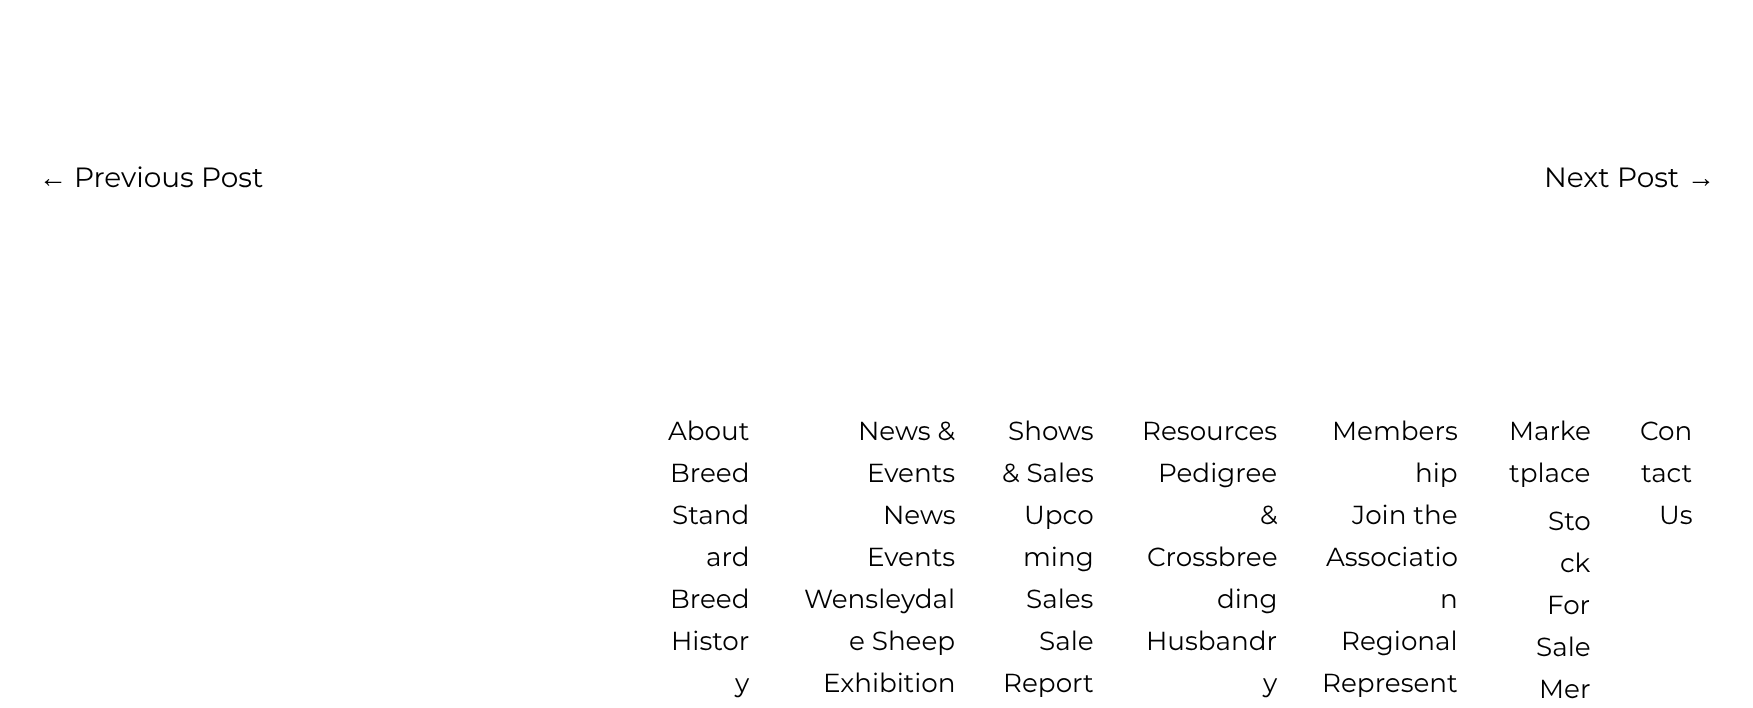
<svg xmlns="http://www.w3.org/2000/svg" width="1753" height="708">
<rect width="100%" height="100%" fill="#fff"/>
<text x="39" y="187" style="font-family:Liberation Sans;font-size:28px;fill:#000">←</text>
<text x="74" y="187" style="font-family:Montserrat;font-size:28px;fill:#000">Previous Post</text>
<text x="1544" y="187" style="font-family:Montserrat;font-size:28px;fill:#000">Next Post</text>
<text x="1687" y="187" style="font-family:Liberation Sans;font-size:28px;fill:#000">→</text>
<text x="668" y="440" style="font-family:Montserrat;font-size:26.25px;fill:#000">About</text>
<text x="670" y="482" style="font-family:Montserrat;font-size:26.25px;fill:#000">Breed</text>
<text x="672" y="524" style="font-family:Montserrat;font-size:26.25px;fill:#000">Stand</text>
<text x="706" y="566" style="font-family:Montserrat;font-size:26.25px;fill:#000">ard</text>
<text x="670" y="608" style="font-family:Montserrat;font-size:26.25px;fill:#000">Breed</text>
<text x="671" y="650" style="font-family:Montserrat;font-size:26.25px;fill:#000">Histor</text>
<text x="735" y="692" style="font-family:Montserrat;font-size:26.25px;fill:#000">y</text>
<text x="858" y="440" style="font-family:Montserrat;font-size:26.25px;fill:#000">News &amp;</text>
<text x="867" y="482" style="font-family:Montserrat;font-size:26.25px;fill:#000">Events</text>
<text x="883" y="524" style="font-family:Montserrat;font-size:26.25px;fill:#000">News</text>
<text x="867" y="566" style="font-family:Montserrat;font-size:26.25px;fill:#000">Events</text>
<text x="804" y="608" style="font-family:Montserrat;font-size:26.25px;fill:#000">Wensleydal</text>
<text x="849" y="650" style="font-family:Montserrat;font-size:26.25px;fill:#000">e Sheep</text>
<text x="823" y="692" style="font-family:Montserrat;font-size:26.25px;fill:#000">Exhibition</text>
<text x="1008" y="440" style="font-family:Montserrat;font-size:26.25px;fill:#000">Shows</text>
<text x="1002" y="482" style="font-family:Montserrat;font-size:26.25px;fill:#000">&amp; Sales</text>
<text x="1024" y="524" style="font-family:Montserrat;font-size:26.25px;fill:#000">Upco</text>
<text x="1023" y="566" style="font-family:Montserrat;font-size:26.25px;fill:#000">ming</text>
<text x="1026" y="608" style="font-family:Montserrat;font-size:26.25px;fill:#000">Sales</text>
<text x="1039" y="650" style="font-family:Montserrat;font-size:26.25px;fill:#000">Sale</text>
<text x="1003" y="692" style="font-family:Montserrat;font-size:26.25px;fill:#000">Report</text>
<text x="1142" y="440" style="font-family:Montserrat;font-size:26.25px;fill:#000">Resources</text>
<text x="1158" y="482" style="font-family:Montserrat;font-size:26.25px;fill:#000">Pedigree</text>
<text x="1260" y="524" style="font-family:Montserrat;font-size:26.25px;fill:#000">&amp;</text>
<text x="1147" y="566" style="font-family:Montserrat;font-size:26.25px;fill:#000">Crossbree</text>
<text x="1217" y="608" style="font-family:Montserrat;font-size:26.25px;fill:#000">ding</text>
<text x="1146" y="650" style="font-family:Montserrat;font-size:26.25px;fill:#000">Husbandr</text>
<text x="1263" y="692" style="font-family:Montserrat;font-size:26.25px;fill:#000">y</text>
<text x="1332" y="440" style="font-family:Montserrat;font-size:26.25px;fill:#000">Members</text>
<text x="1415" y="482" style="font-family:Montserrat;font-size:26.25px;fill:#000">hip</text>
<text x="1352" y="524" style="font-family:Montserrat;font-size:26.25px;fill:#000">Join the</text>
<text x="1326" y="566" style="font-family:Montserrat;font-size:26.25px;fill:#000">Associatio</text>
<text x="1440" y="608" style="font-family:Montserrat;font-size:26.25px;fill:#000">n</text>
<text x="1341" y="650" style="font-family:Montserrat;font-size:26.25px;fill:#000">Regional</text>
<text x="1322" y="692" style="font-family:Montserrat;font-size:26.25px;fill:#000">Represent</text>
<text x="1509" y="440" style="font-family:Montserrat;font-size:26.25px;fill:#000">Marke</text>
<text x="1509" y="482" style="font-family:Montserrat;font-size:26.25px;fill:#000">tplace</text>
<text x="1548" y="530" style="font-family:Montserrat;font-size:26.25px;fill:#000">Sto</text>
<text x="1560" y="572" style="font-family:Montserrat;font-size:26.25px;fill:#000">ck</text>
<text x="1547" y="614" style="font-family:Montserrat;font-size:26.25px;fill:#000">For</text>
<text x="1536" y="656" style="font-family:Montserrat;font-size:26.25px;fill:#000">Sale</text>
<text x="1539" y="698" style="font-family:Montserrat;font-size:26.25px;fill:#000">Mer</text>
<text x="1640" y="440" style="font-family:Montserrat;font-size:26.25px;fill:#000">Con</text>
<text x="1641" y="482" style="font-family:Montserrat;font-size:26.25px;fill:#000">tact</text>
<text x="1659" y="524" style="font-family:Montserrat;font-size:26.25px;fill:#000">Us</text>
</svg>
